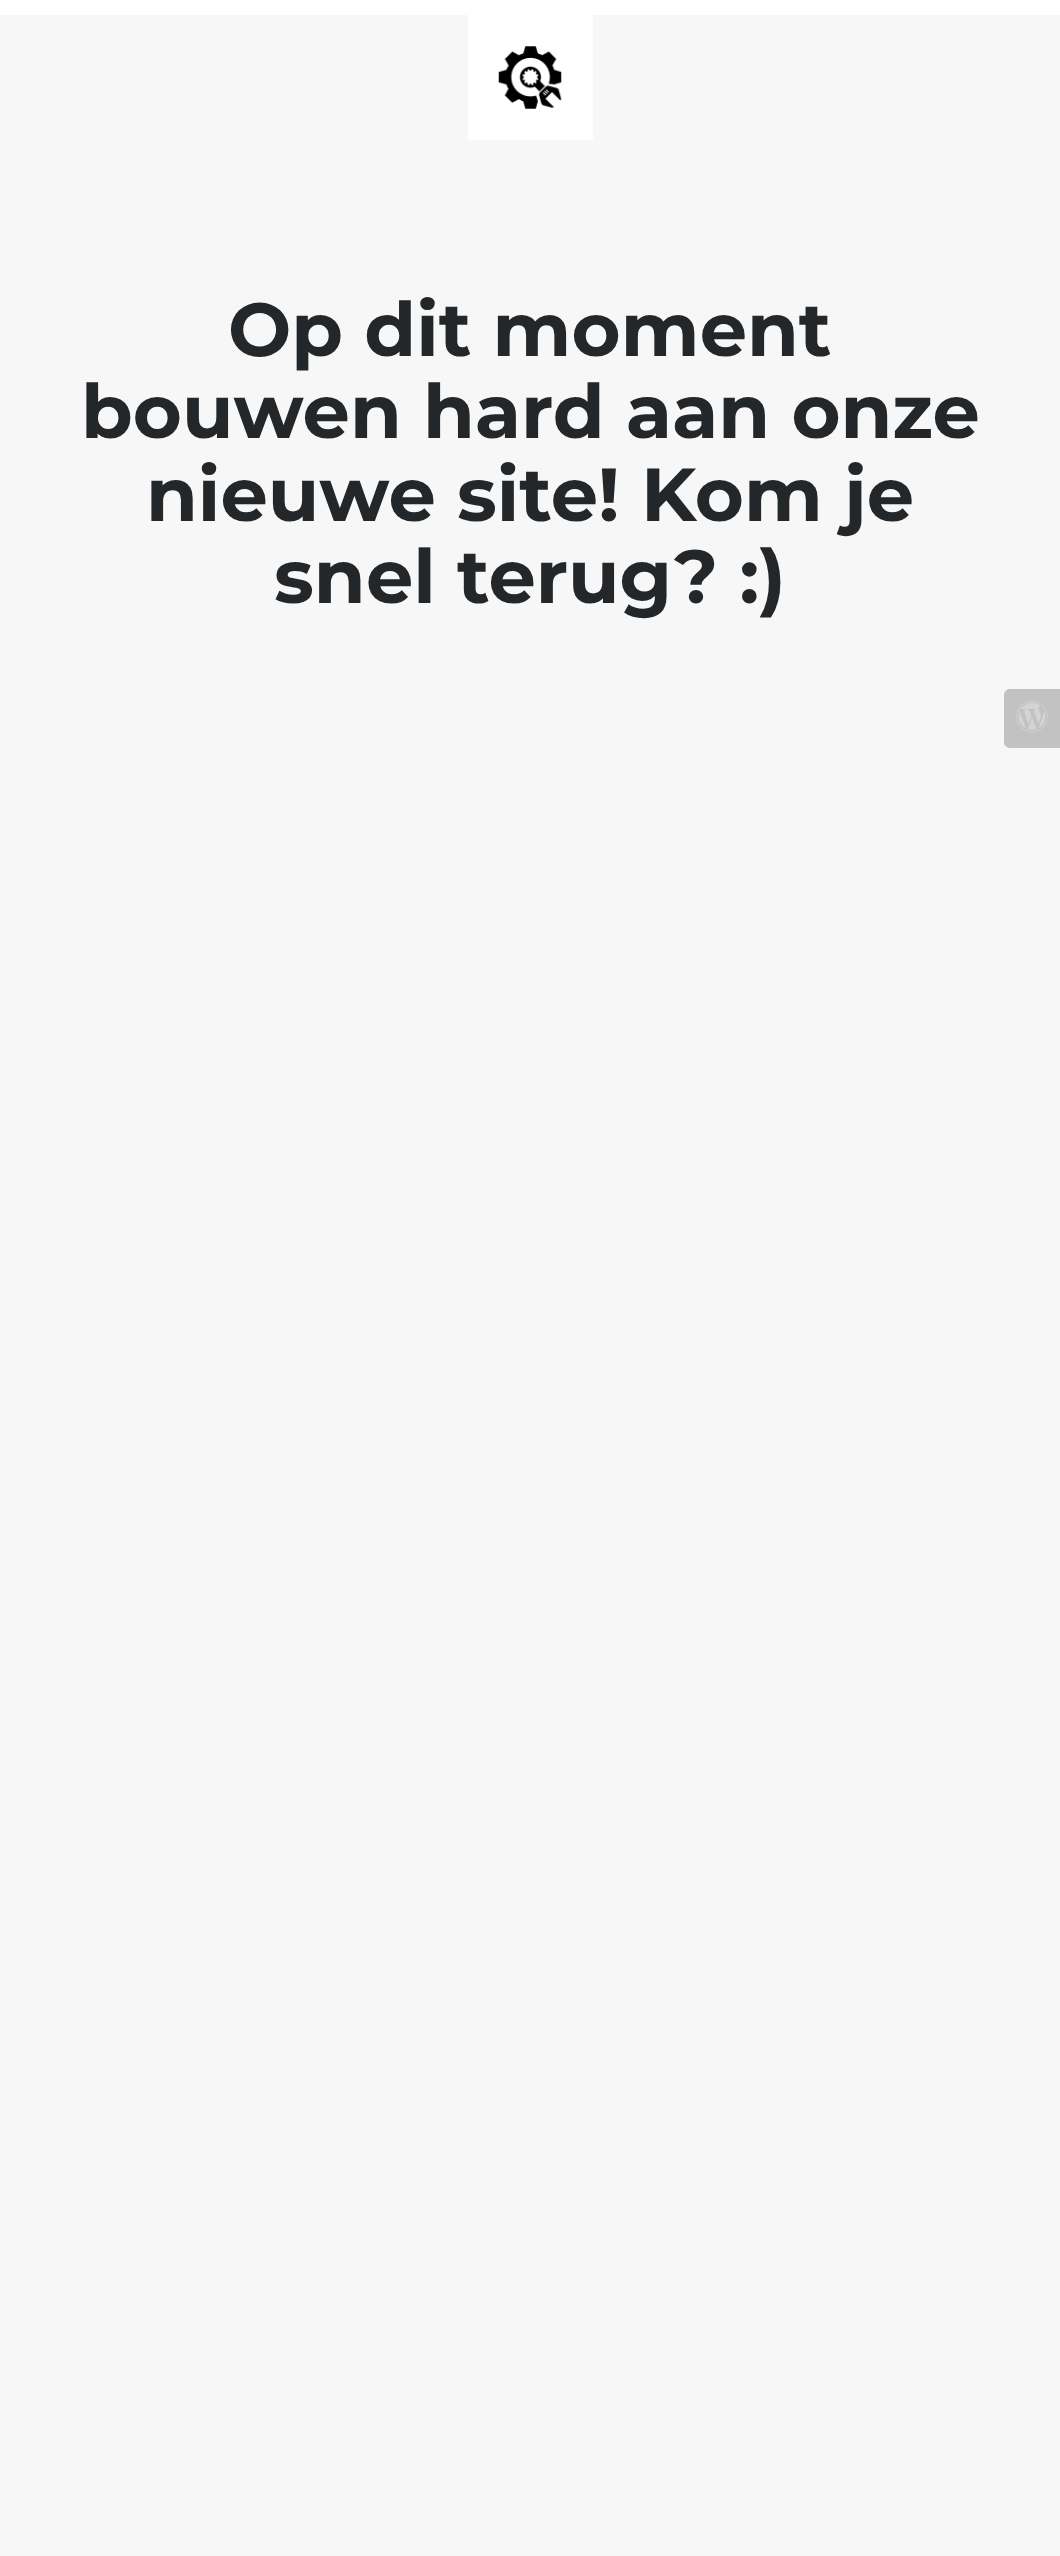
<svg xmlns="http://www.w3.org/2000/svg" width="1060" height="2556">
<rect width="100%" height="100%" fill="#f7f7f7"/>
<rect width="1060" height="15" fill="#fff"/>
<rect x="468" y="15" width="125" height="125" fill="#fff"/>
<image x="498" y="46" width="64" height="63" href="media/1.png"/>
<text x="228" y="356" style="font-family:Montserrat;font-size:75px;font-weight:100;fill:#23272a">Op dit moment</text>
<text x="81" y="438" style="font-family:Montserrat;font-size:75px;font-weight:100;fill:#23272a">bouwen hard aan onze</text>
<text x="146" y="521" style="font-family:Montserrat;font-size:75px;font-weight:100;fill:#23272a">nieuwe site! Kom je</text>
<text x="274" y="603" style="font-family:Montserrat;font-size:75px;font-weight:100;fill:#23272a">snel terug? :)</text>
<path d="M1010 689h50v59h-50c-3.5 0-6-2.5-6-6v-47c0-3.5 2.5-6 6-6z" fill="#c2c2c2"/>
<image x="1016" y="700" width="32" height="32" href="media/2.png"/>
</svg>
